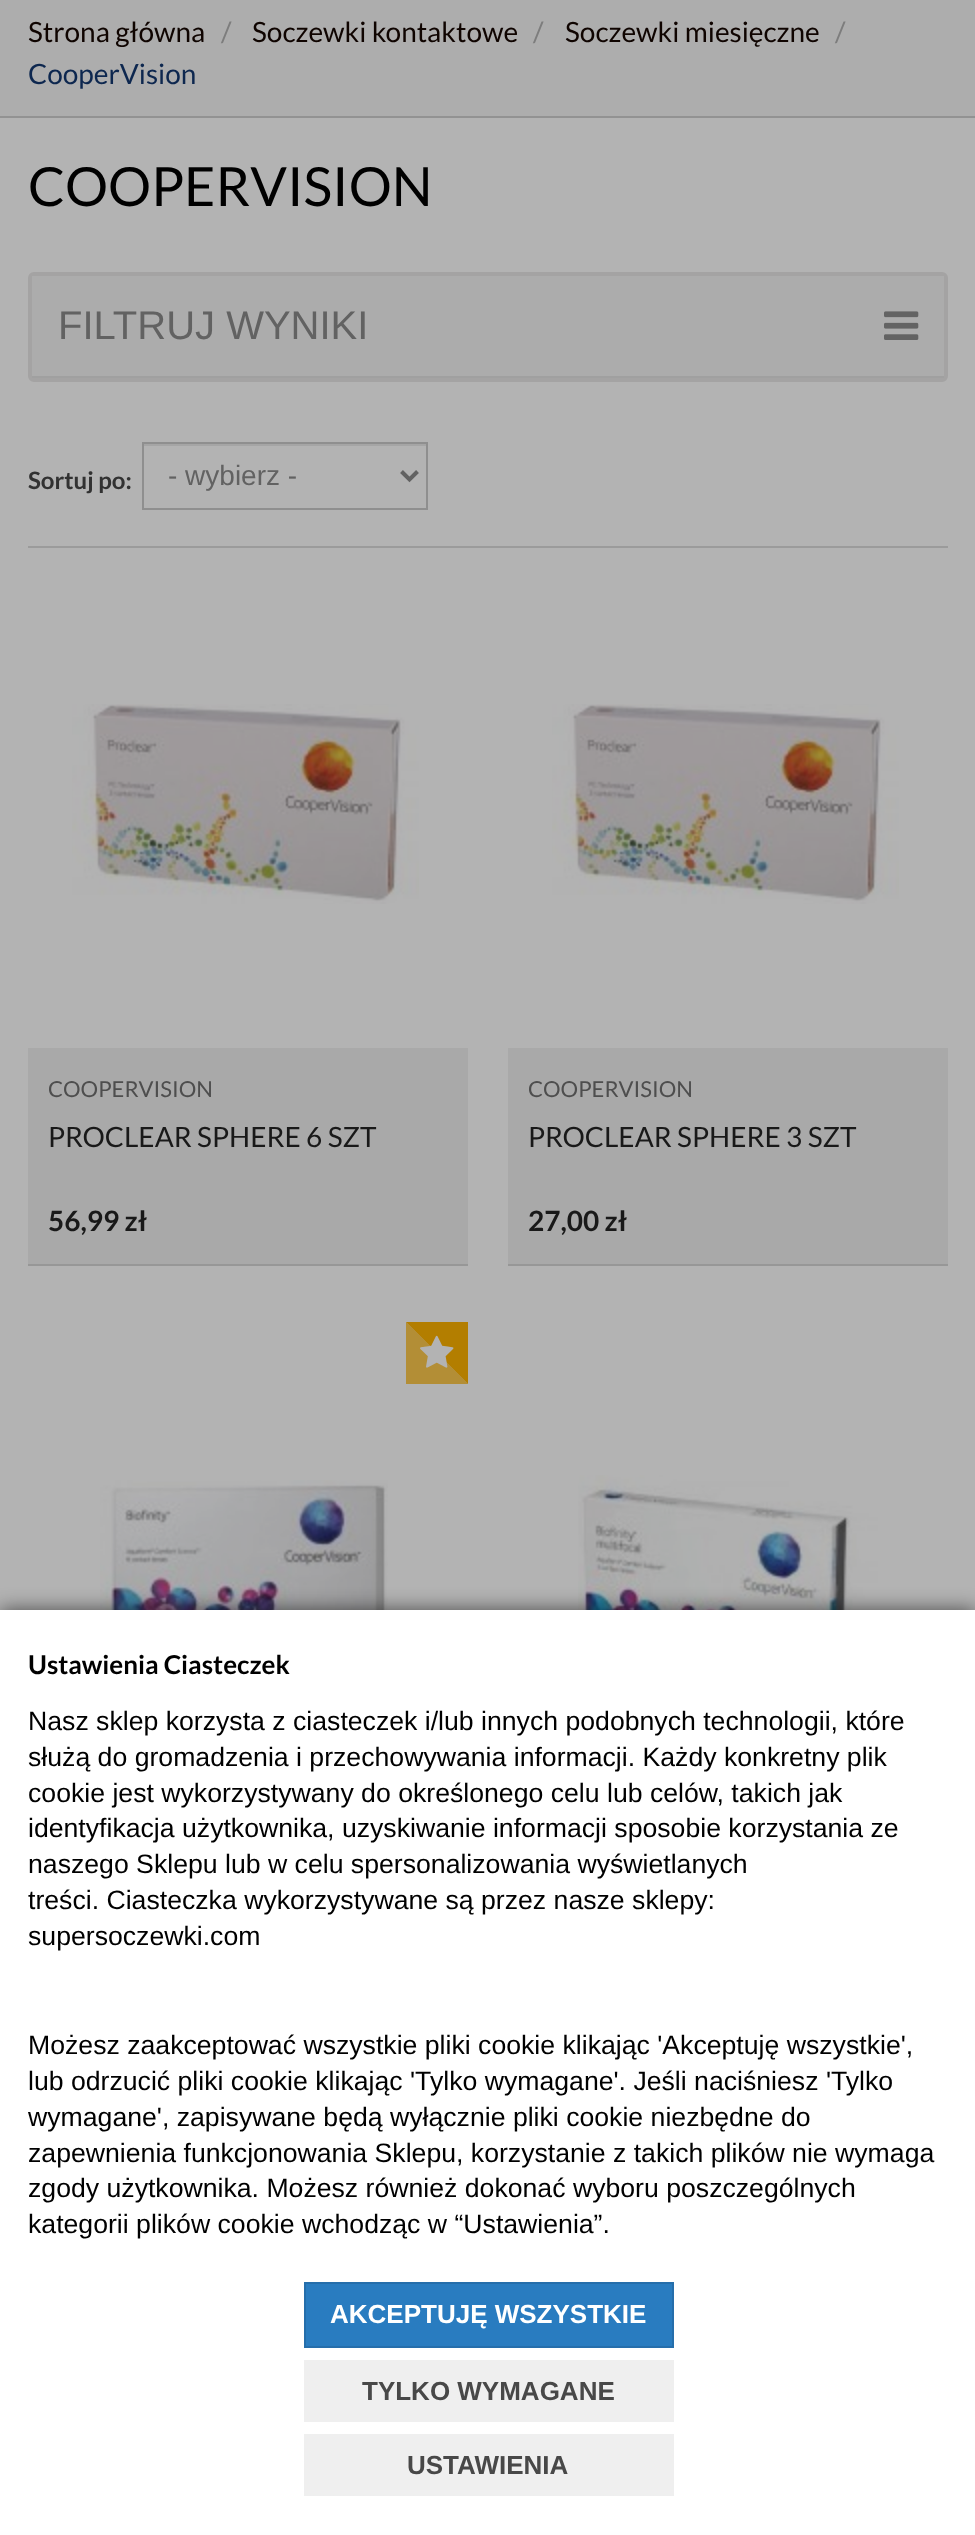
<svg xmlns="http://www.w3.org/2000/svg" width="975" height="2535">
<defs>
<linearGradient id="g1" gradientUnits="userSpaceOnUse" x1="406" y1="1384" x2="468" y2="1322"><stop offset="0.5" stop-color="#b38e36"/><stop offset="0.5" stop-color="#b37e00"/></linearGradient>
</defs>
<rect width="100%" height="100%" fill="#adadad"/>
<rect y="116" width="975" height="2" fill="#929292"/>
<text x="28" y="42" style="font-family:Lato;font-size:28px;fill:#0f0400">Strona główna</text>
<text x="221" y="42" style="font-family:Lato;font-size:28px;fill:#7d7d7d">/</text>
<text x="252" y="42" style="font-family:Lato;font-size:28px;fill:#0f0400">Soczewki kontaktowe</text>
<text x="533" y="42" style="font-family:Lato;font-size:28px;fill:#7d7d7d">/</text>
<text x="565" y="42" style="font-family:Lato;font-size:28px;fill:#0f0400">Soczewki miesięczne</text>
<text x="835" y="42" style="font-family:Lato;font-size:28px;fill:#7d7d7d">/</text>
<text x="28" y="84" style="font-family:Lato;font-size:28px;fill:#0d274f">CooperVision</text>
<rect y="118" width="975" height="1492" fill="#b3b3b3"/>
<text x="28" y="206" style="font-family:Lato;font-size:54px;fill:#000">COOPERVISION</text>
<rect x="30" y="274" width="916" height="106" rx="4" fill="none" stroke="#a4a3a3" stroke-width="4"/>
<rect x="32" y="276" width="912" height="100" fill="#acacac"/>
<rect x="32" y="376" width="912" height="2" fill="#a0a0a0"/>
<text x="58" y="339" style="font-family:Liberation Sans;font-size:40px;fill:#626262">FILTRUJ WYNIKI</text>
<image x="884" y="311" width="35" height="29" href="media/1.png"/>
<text x="28" y="489" style="font-family:Lato;font-size:24px;font-weight:bold;fill:#323232">Sortuj po:</text>
<rect x="144" y="444" width="282" height="2" fill="#a5a5a5"/>
<rect x="143" y="443" width="284" height="66" fill="none" stroke="#8f8f8f" stroke-width="2"/>
<path d="M401.5 471.5l8 8l8-8" fill="none" stroke="#626262" stroke-width="4"/>
<text x="168" y="485" style="font-family:Liberation Sans;font-size:28px;fill:#626262">- wybierz -</text>
<rect x="28" y="546" width="920" height="2" fill="#9b9b9b"/>
<image x="72" y="704" width="347" height="200" href="media/2.png"/>
<rect x="28" y="1048" width="440" height="216" fill="#a9a9a9"/>
<rect x="28" y="1264" width="440" height="2" fill="#979797"/>
<text x="48" y="1097" style="font-family:Lato;font-size:22px;fill:#4e4e4e">COOPERVISION</text>
<text x="48" y="1147" style="font-family:Lato;font-size:28px;fill:#191919">PROCLEAR SPHERE 6 SZT</text>
<text x="48" y="1231" style="font-family:Lato;font-size:28px;font-weight:bold;fill:#191919">56,99 zł</text>
<image x="552" y="704" width="347" height="200" href="media/2.png"/>
<rect x="508" y="1048" width="440" height="216" fill="#a9a9a9"/>
<rect x="508" y="1264" width="440" height="2" fill="#979797"/>
<text x="528" y="1097" style="font-family:Lato;font-size:22px;fill:#4e4e4e">COOPERVISION</text>
<text x="528" y="1147" style="font-family:Lato;font-size:28px;fill:#191919">PROCLEAR SPHERE 3 SZT</text>
<text x="528" y="1231" style="font-family:Lato;font-size:28px;font-weight:bold;fill:#191919">27,00 zł</text>
<rect x="406" y="1322" width="62" height="62" fill="url(#g1)"/>
<image x="420" y="1335" width="34" height="33" href="media/3.png"/>
<image x="100" y="1480" width="288" height="130" href="media/4.png"/>
<image x="578" y="1475" width="300" height="135" href="media/5.png"/>
<rect y="1610" width="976" height="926" fill="#00000099" filter="blur(10px)"/>
<rect y="1610" width="975" height="925" fill="#fff"/>
<text x="28" y="1674" style="font-family:Lato;font-size:26px;font-weight:bold;fill:#000">Ustawienia Ciasteczek</text>
<text x="28" y="1730" style="font-family:Liberation Sans;font-size:26.65px;fill:#000">Nasz sklep korzysta z ciasteczek i/lub innych podobnych technologii, które</text>
<text x="28" y="1766" style="font-family:Liberation Sans;font-size:26.65px;fill:#000">służą do gromadzenia i przechowywania informacji. Każdy konkretny plik</text>
<text x="28" y="1802" style="font-family:Liberation Sans;font-size:26.65px;fill:#000">cookie jest wykorzystywany do określonego celu lub celów, takich jak</text>
<text x="28" y="1837" style="font-family:Liberation Sans;font-size:26.65px;fill:#000">identyfikacja użytkownika, uzyskiwanie informacji sposobie korzystania ze</text>
<text x="28" y="1873" style="font-family:Liberation Sans;font-size:26.65px;fill:#000">naszego Sklepu lub w celu spersonalizowania wyświetlanych</text>
<text x="28" y="1909" style="font-family:Liberation Sans;font-size:26.65px;fill:#000">treści. Ciasteczka wykorzystywane są przez nasze sklepy:</text>
<text x="28" y="1945" style="font-family:Liberation Sans;font-size:26.65px;fill:#000">supersoczewki.com</text>
<text x="28" y="2054" style="font-family:Liberation Sans;font-size:26.65px;fill:#000">Możesz zaakceptować wszystkie pliki cookie klikając 'Akceptuję wszystkie',</text>
<text x="28" y="2090" style="font-family:Liberation Sans;font-size:26.65px;fill:#000">lub odrzucić pliki cookie klikając 'Tylko wymagane'. Jeśli naciśniesz 'Tylko</text>
<text x="28" y="2126" style="font-family:Liberation Sans;font-size:26.65px;fill:#000">wymagane', zapisywane będą wyłącznie pliki cookie niezbędne do</text>
<text x="28" y="2162" style="font-family:Liberation Sans;font-size:26.65px;fill:#000">zapewnienia funkcjonowania Sklepu, korzystanie z takich plików nie wymaga</text>
<text x="28" y="2197" style="font-family:Liberation Sans;font-size:26.65px;fill:#000">zgody użytkownika. Możesz również dokonać wyboru poszczególnych</text>
<text x="28" y="2233" style="font-family:Liberation Sans;font-size:26.65px;fill:#000">kategorii plików cookie wchodząc w “Ustawienia”.</text>
<rect x="305" y="2283" width="368" height="64" fill="#297cc0" stroke="#256eab" stroke-width="2"/>
<text x="330" y="2323" style="font-family:Liberation Sans;font-size:26px;font-weight:bold;fill:#fff">AKCEPTUJĘ WSZYSTKIE</text>
<rect x="304" y="2360" width="370" height="62" fill="#efefef"/>
<text x="362" y="2400" style="font-family:Liberation Sans;font-size:26px;font-weight:bold;fill:#484848">TYLKO WYMAGANE</text>
<rect x="304" y="2434" width="370" height="62" fill="#efefef"/>
<text x="407" y="2474" style="font-family:Liberation Sans;font-size:26px;font-weight:bold;fill:#484848">USTAWIENIA</text>
</svg>
